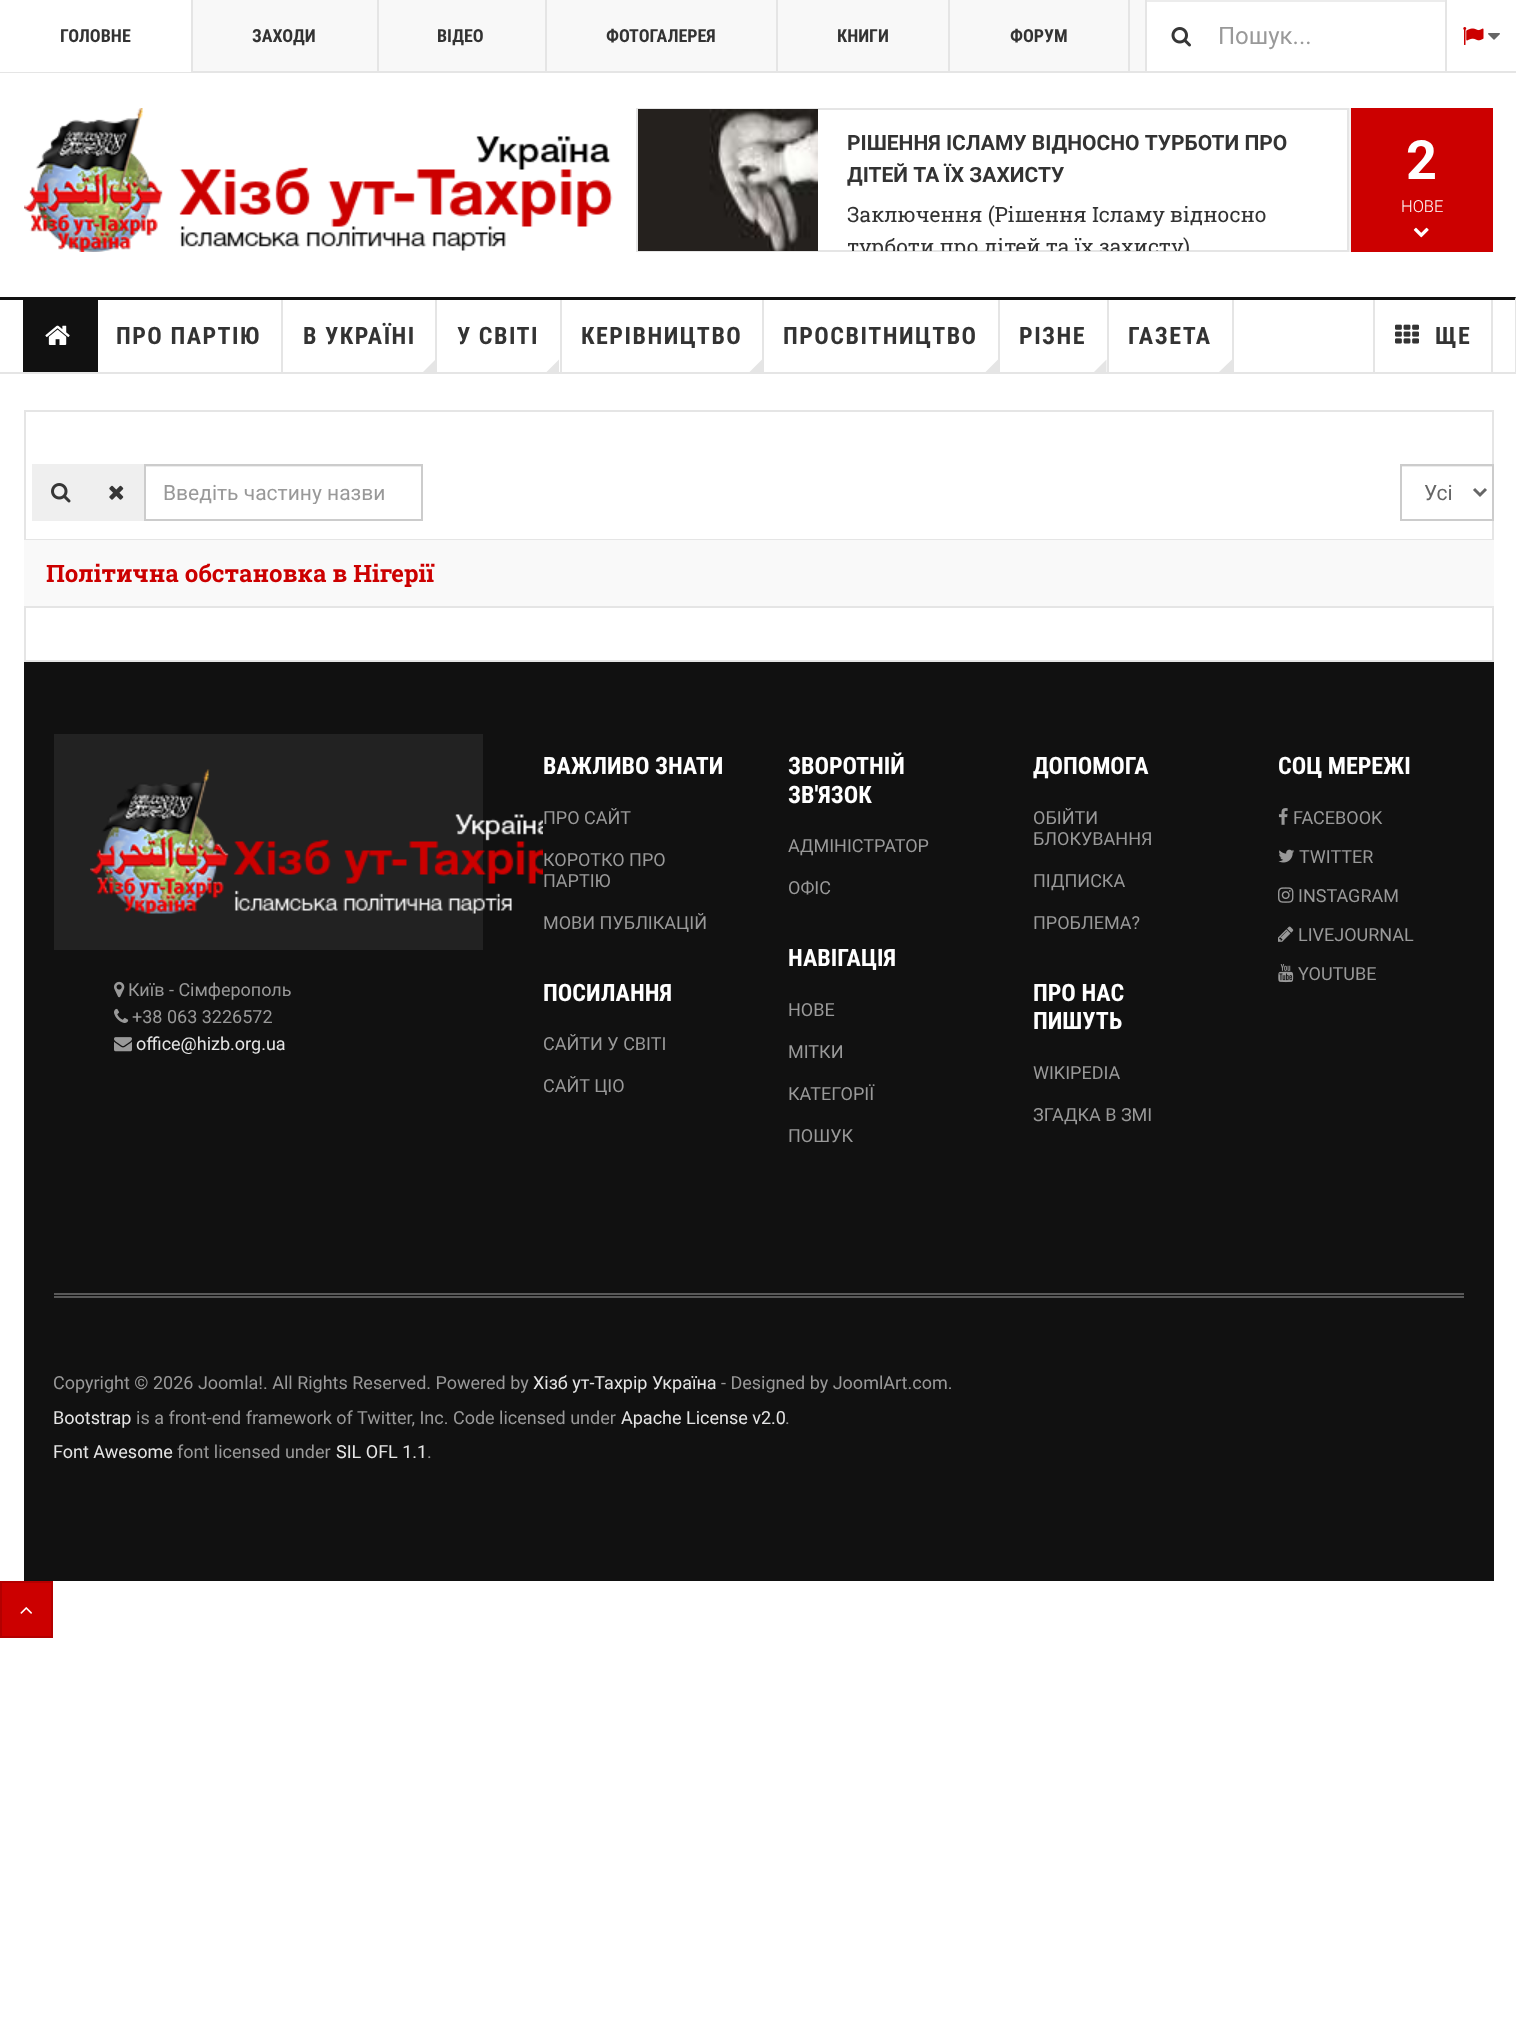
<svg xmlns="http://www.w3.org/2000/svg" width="1516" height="2022">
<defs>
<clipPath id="clip1"><rect x="848" y="198" width="499" height="53"/></clipPath>
<clipPath id="clip2"><rect x="164" y="480" width="240" height="24"/></clipPath>
</defs>
<rect width="100%" height="100%" fill="#fff"/>
<rect x="193" width="952" height="71" fill="#f8f8f8"/>
<rect y="71" width="1516" height="2" fill="#e5e5e5"/>
<rect y="71" width="191" height="1" fill="#fff"/>
<rect x="191" width="2" height="72" fill="#e5e5e5"/>
<text x="60" y="42" style="font-family:Roboto Condensed;font-size:18px;font-weight:bold;fill:#333">ГОЛОВНЕ</text>
<rect x="377" width="2" height="72" fill="#e5e5e5"/>
<text x="252" y="42" style="font-family:Roboto Condensed;font-size:18px;font-weight:bold;fill:#333">ЗАХОДИ</text>
<rect x="545" width="2" height="72" fill="#e5e5e5"/>
<text x="437" y="42" style="font-family:Roboto Condensed;font-size:18px;font-weight:bold;fill:#333">ВІДЕО</text>
<rect x="776" width="2" height="72" fill="#e5e5e5"/>
<text x="606" y="42" style="font-family:Roboto Condensed;font-size:18px;font-weight:bold;fill:#333">ФОТОГАЛЕРЕЯ</text>
<rect x="948" width="2" height="72" fill="#e5e5e5"/>
<text x="837" y="42" style="font-family:Roboto Condensed;font-size:18px;font-weight:bold;fill:#333">КНИГИ</text>
<rect x="1128" width="2" height="72" fill="#e5e5e5"/>
<text x="1010" y="42" style="font-family:Roboto Condensed;font-size:18px;font-weight:bold;fill:#333">ФОРУМ</text>
<image x="1171" y="27" width="20" height="20" href="media/1.png"/>
<rect x="1146" width="299" height="2" fill="#ececec"/>
<rect x="1145" width="2" height="71" fill="#e5e5e5"/>
<text x="1218" y="44" style="font-family:Roboto;font-size:24px;fill:#999">Пошук...</text>
<rect x="1445" width="2" height="71" fill="#e5e5e5"/>
<image x="1463" y="27" width="21" height="18" href="media/2.png"/>
<image x="1488" y="33" width="12" height="7" href="media/3.png"/>
<image x="24" y="108" width="589" height="144" href="media/4.png"/>
<rect x="637" y="109" width="711" height="142" fill="none" stroke="#e5e5e5" stroke-width="2"/>
<image x="638" y="109" width="180" height="142" href="media/5.png"/>
<text x="847" y="150" style="font-family:Roboto;font-size:21px;font-weight:bold;fill:#333">РІШЕННЯ ІСЛАМУ ВІДНОСНО ТУРБОТИ ПРО</text>
<text x="847" y="182" style="font-family:Roboto;font-size:21px;font-weight:bold;fill:#333">ДІТЕЙ ТА ЇХ ЗАХИСТУ</text>
<text x="847" y="222" style="font-family:Roboto Slab;font-size:21px;fill:#333">Заключення (Рішення Ісламу відносно</text>
<g clip-path="url(#clip1)">
<text x="847" y="254" style="font-family:Roboto Slab;font-size:21px;fill:#333">турботи про дітей та їх захисту)</text>
</g>
<rect x="1351" y="108" width="142" height="144" fill="#c00"/>
<rect x="1349" y="108" width="2" height="144" fill="#f2f2f2"/>
<text x="1406" y="179" style="font-family:Roboto;font-size:54px;font-weight:bold;fill:#fff">2</text>
<text x="1401" y="212" style="font-family:Roboto;font-size:16.5px;font-weight:300;fill:#fff">НОВЕ</text>
<image x="1413" y="227" width="16" height="11" href="media/6.png"/>
<path d="M0 297h1516l-1 3h-1515z" fill="#111"/>
<path d="M1516 297v77l-1-2v-72z" fill="#e5e5e5"/>
<rect y="372" width="1516" height="2" fill="#e5e5e5"/>
<rect x="23" y="300" width="75" height="72" fill="#111"/>
<image x="45" y="325" width="25" height="20" href="media/7.png"/>
<rect x="281" y="300" width="2" height="72" fill="#e5e5e5"/>
<text x="116" y="344" style="font-family:Roboto Condensed;font-size:24px;font-weight:bold;letter-spacing:1.5px;fill:#333">ПРО ПАРТІЮ</text>
<rect x="435" y="300" width="2" height="72" fill="#e5e5e5"/>
<text x="303" y="344" style="font-family:Roboto Condensed;font-size:24px;font-weight:bold;letter-spacing:1.5px;fill:#333">В УКРАЇНІ</text>
<path d="M423 372l12.5-12.5v12.5z" fill="#e5e5e5"/>
<rect x="560" y="300" width="2" height="72" fill="#e5e5e5"/>
<text x="457" y="344" style="font-family:Roboto Condensed;font-size:24px;font-weight:bold;letter-spacing:1.5px;fill:#333">У СВІТІ</text>
<path d="M546.5 372l12.5-12.5v12.5z" fill="#e5e5e5"/>
<rect x="762" y="300" width="2" height="72" fill="#e5e5e5"/>
<text x="581" y="344" style="font-family:Roboto Condensed;font-size:24px;font-weight:bold;letter-spacing:1.5px;fill:#333">КЕРІВНИЦТВО</text>
<path d="M749.5 372l12.5-12.5v12.5z" fill="#e5e5e5"/>
<rect x="998" y="300" width="2" height="72" fill="#e5e5e5"/>
<text x="783" y="344" style="font-family:Roboto Condensed;font-size:24px;font-weight:bold;letter-spacing:1.5px;fill:#333">ПРОСВІТНИЦТВО</text>
<path d="M985.5 372l12.5-12.5v12.5z" fill="#e5e5e5"/>
<rect x="1107" y="300" width="2" height="72" fill="#e5e5e5"/>
<text x="1019" y="344" style="font-family:Roboto Condensed;font-size:24px;font-weight:bold;letter-spacing:1.5px;fill:#333">РІЗНЕ</text>
<path d="M1094 372l12.5-12.5v12.5z" fill="#e5e5e5"/>
<rect x="1232" y="300" width="2" height="72" fill="#e5e5e5"/>
<text x="1128" y="344" style="font-family:Roboto Condensed;font-size:24px;font-weight:bold;letter-spacing:1.5px;fill:#333">ГАЗЕТА</text>
<path d="M1219 372l13-12.5v12.5z" fill="#e5e5e5"/>
<rect x="1373" y="300" width="2" height="72" fill="#e5e5e5"/>
<rect x="1491" y="300" width="2" height="72" fill="#e5e5e5"/>
<image x="1395" y="324" width="24" height="20" href="media/8.png"/>
<text x="1435" y="344" style="font-family:Roboto Condensed;font-size:24px;font-weight:bold;letter-spacing:1.5px;fill:#333">ЩЕ</text>
<rect x="25" y="411" width="1468" height="250" fill="none" stroke="#e5e5e5" stroke-width="2"/>
<rect x="32" y="464" width="112" height="57" fill="#efefef"/>
<image x="51" y="483" width="20" height="20" href="media/9.png"/>
<rect x="146" y="466" width="276" height="1" fill="#ececec"/>
<rect x="145" y="465" width="277" height="55" fill="none" stroke="#ccc" stroke-width="2"/>
<g clip-path="url(#clip2)">
<text x="163" y="500" style="font-family:Roboto;font-size:21px;fill:#999">Введіть частину назви</text>
</g>
<image x="109" y="485" width="15" height="15" href="media/10.png"/>
<rect x="1401" y="466" width="92" height="1" fill="#ececec"/>
<rect x="1401" y="465" width="92" height="55" fill="none" stroke="#ccc" stroke-width="2"/>
<path d="M1474 489l6 6l6-6" fill="none" stroke="#666" stroke-width="3"/>
<text x="1424" y="500" style="font-family:Roboto;font-size:21px;fill:#666">Усі</text>
<rect x="24" y="539" width="1470" height="1" fill="#e5e5e5"/>
<rect x="24" y="540" width="1470" height="66" fill="#f9f9f9"/>
<rect x="24" y="606" width="1470" height="2" fill="#e5e5e5"/>
<text x="46" y="582" style="font-family:Roboto Slab;font-size:24px;font-weight:bold;fill:#c00">Політична обстановка в Нігерії</text>
<rect x="24" y="662" width="1470" height="919" fill="#111"/>
<rect x="54" y="734" width="429" height="216" fill="#222"/>
<image x="90" y="769" width="453" height="145" href="media/11.png"/>
<image x="114" y="981" width="11" height="17" href="media/12.png"/>
<text x="128" y="996" style="font-family:Roboto;font-size:18px;fill:#999">Київ - Сімферополь</text>
<image x="114" y="1008" width="15" height="15" href="media/13.png"/>
<text x="132" y="1023" style="font-family:Roboto;font-size:18px;fill:#999">+38 063 3226572</text>
<image x="114" y="1037" width="18" height="15" href="media/14.png"/>
<text x="136" y="1050" style="font-family:Roboto;font-size:18px;fill:#e5e5e5">office@hizb.org.ua</text>
<text x="543" y="774" style="font-family:Roboto Condensed;font-size:24px;font-weight:bold;fill:#fff">ВАЖЛИВО ЗНАТИ</text>
<text x="543" y="824" style="font-family:Roboto;font-size:18px;fill:#999">ПРО САЙТ</text>
<text x="543" y="866" style="font-family:Roboto;font-size:18px;fill:#999">КОРОТКО ПРО</text>
<text x="543" y="887" style="font-family:Roboto;font-size:18px;fill:#999">ПАРТІЮ</text>
<text x="543" y="929" style="font-family:Roboto;font-size:18px;fill:#999">МОВИ ПУБЛІКАЦІЙ</text>
<text x="543" y="1001" style="font-family:Roboto Condensed;font-size:24px;font-weight:bold;fill:#fff">ПОСИЛАННЯ</text>
<text x="543" y="1050" style="font-family:Roboto;font-size:18px;fill:#999">САЙТИ У СВІТІ</text>
<text x="543" y="1092" style="font-family:Roboto;font-size:18px;fill:#999">САЙТ ЦІО</text>
<text x="788" y="774" style="font-family:Roboto Condensed;font-size:24px;font-weight:bold;fill:#fff">ЗВОРОТНІЙ</text>
<text x="788" y="803" style="font-family:Roboto Condensed;font-size:24px;font-weight:bold;fill:#fff">ЗВ'ЯЗОК</text>
<text x="788" y="852" style="font-family:Roboto;font-size:18px;fill:#999">АДМІНІСТРАТОР</text>
<text x="788" y="894" style="font-family:Roboto;font-size:18px;fill:#999">ОФІС</text>
<text x="788" y="966" style="font-family:Roboto Condensed;font-size:24px;font-weight:bold;fill:#fff">НАВІГАЦІЯ</text>
<text x="788" y="1016" style="font-family:Roboto;font-size:18px;fill:#999">НОВЕ</text>
<text x="788" y="1058" style="font-family:Roboto;font-size:18px;fill:#999">МІТКИ</text>
<text x="788" y="1100" style="font-family:Roboto;font-size:18px;fill:#999">КАТЕГОРІЇ</text>
<text x="788" y="1142" style="font-family:Roboto;font-size:18px;fill:#999">ПОШУК</text>
<text x="1033" y="774" style="font-family:Roboto Condensed;font-size:24px;font-weight:bold;fill:#fff">ДОПОМОГА</text>
<text x="1033" y="824" style="font-family:Roboto;font-size:18px;fill:#999">ОБІЙТИ</text>
<text x="1033" y="845" style="font-family:Roboto;font-size:18px;fill:#999">БЛОКУВАННЯ</text>
<text x="1033" y="887" style="font-family:Roboto;font-size:18px;fill:#999">ПІДПИСКА</text>
<text x="1033" y="929" style="font-family:Roboto;font-size:18px;fill:#999">ПРОБЛЕМА?</text>
<text x="1033" y="1001" style="font-family:Roboto Condensed;font-size:24px;font-weight:bold;fill:#fff">ПРО НАС</text>
<text x="1033" y="1029" style="font-family:Roboto Condensed;font-size:24px;font-weight:bold;fill:#fff">ПИШУТЬ</text>
<text x="1033" y="1079" style="font-family:Roboto;font-size:18px;fill:#999">WIKIPEDIA</text>
<text x="1033" y="1121" style="font-family:Roboto;font-size:18px;fill:#999">ЗГАДКА В ЗМІ</text>
<text x="1278" y="774" style="font-family:Roboto Condensed;font-size:24px;font-weight:bold;fill:#fff">СОЦ МЕРЕЖІ</text>
<image x="1278" y="808" width="10" height="17" href="media/15.png"/>
<text x="1293" y="824" style="font-family:Roboto;font-size:18px;fill:#999">FACEBOOK</text>
<image x="1278" y="849" width="17" height="14" href="media/16.png"/>
<text x="1299" y="863" style="font-family:Roboto;font-size:18px;fill:#999">TWITTER</text>
<image x="1278" y="887" width="16" height="16" href="media/17.png"/>
<text x="1298" y="902" style="font-family:Roboto;font-size:18px;fill:#999">INSTAGRAM</text>
<image x="1278" y="926" width="16" height="16" href="media/18.png"/>
<text x="1298" y="941" style="font-family:Roboto;font-size:18px;fill:#999">LIVEJOURNAL</text>
<image x="1278" y="964" width="16" height="19" href="media/19.png"/>
<text x="1298" y="980" style="font-family:Roboto;font-size:18px;fill:#999">YOUTUBE</text>
<rect x="54" y="1293" width="1410" height="2" fill="#585858"/>
<rect x="54" y="1296" width="1410" height="2" fill="#585858"/>
<text x="53" y="1389" style="font-family:Roboto;font-size:18px;fill:#999">Copyright © 2026 Joomla!. All Rights Reserved. Powered by</text>
<text x="533" y="1389" style="font-family:Roboto;font-size:18px;fill:#e5e5e5">Хізб ут-Тахрір Україна</text>
<text x="721" y="1389" style="font-family:Roboto;font-size:18px;fill:#999">- Designed by JoomlArt.com.</text>
<text x="53" y="1424" style="font-family:Roboto;font-size:18px;fill:#e5e5e5">Bootstrap</text>
<text x="136" y="1424" style="font-family:Roboto;font-size:18px;fill:#999">is a front-end framework of Twitter, Inc. Code licensed under</text>
<text x="621" y="1424" style="font-family:Roboto;font-size:18px;fill:#e5e5e5">Apache License v2.0</text>
<text x="785" y="1424" style="font-family:Roboto;font-size:18px;fill:#999">.</text>
<text x="53" y="1458" style="font-family:Roboto;font-size:18px;fill:#e5e5e5">Font Awesome</text>
<text x="177" y="1458" style="font-family:Roboto;font-size:18px;fill:#999">font licensed under</text>
<text x="336" y="1458" style="font-family:Roboto;font-size:18px;fill:#e5e5e5">SIL OFL 1.1</text>
<text x="427" y="1458" style="font-family:Roboto;font-size:18px;fill:#999">.</text>
<rect x="1" y="1582" width="51" height="55" fill="#c00" stroke="#b30000" stroke-width="2"/>
<image x="20" y="1607" width="12" height="7" href="media/20.png"/>
</svg>
